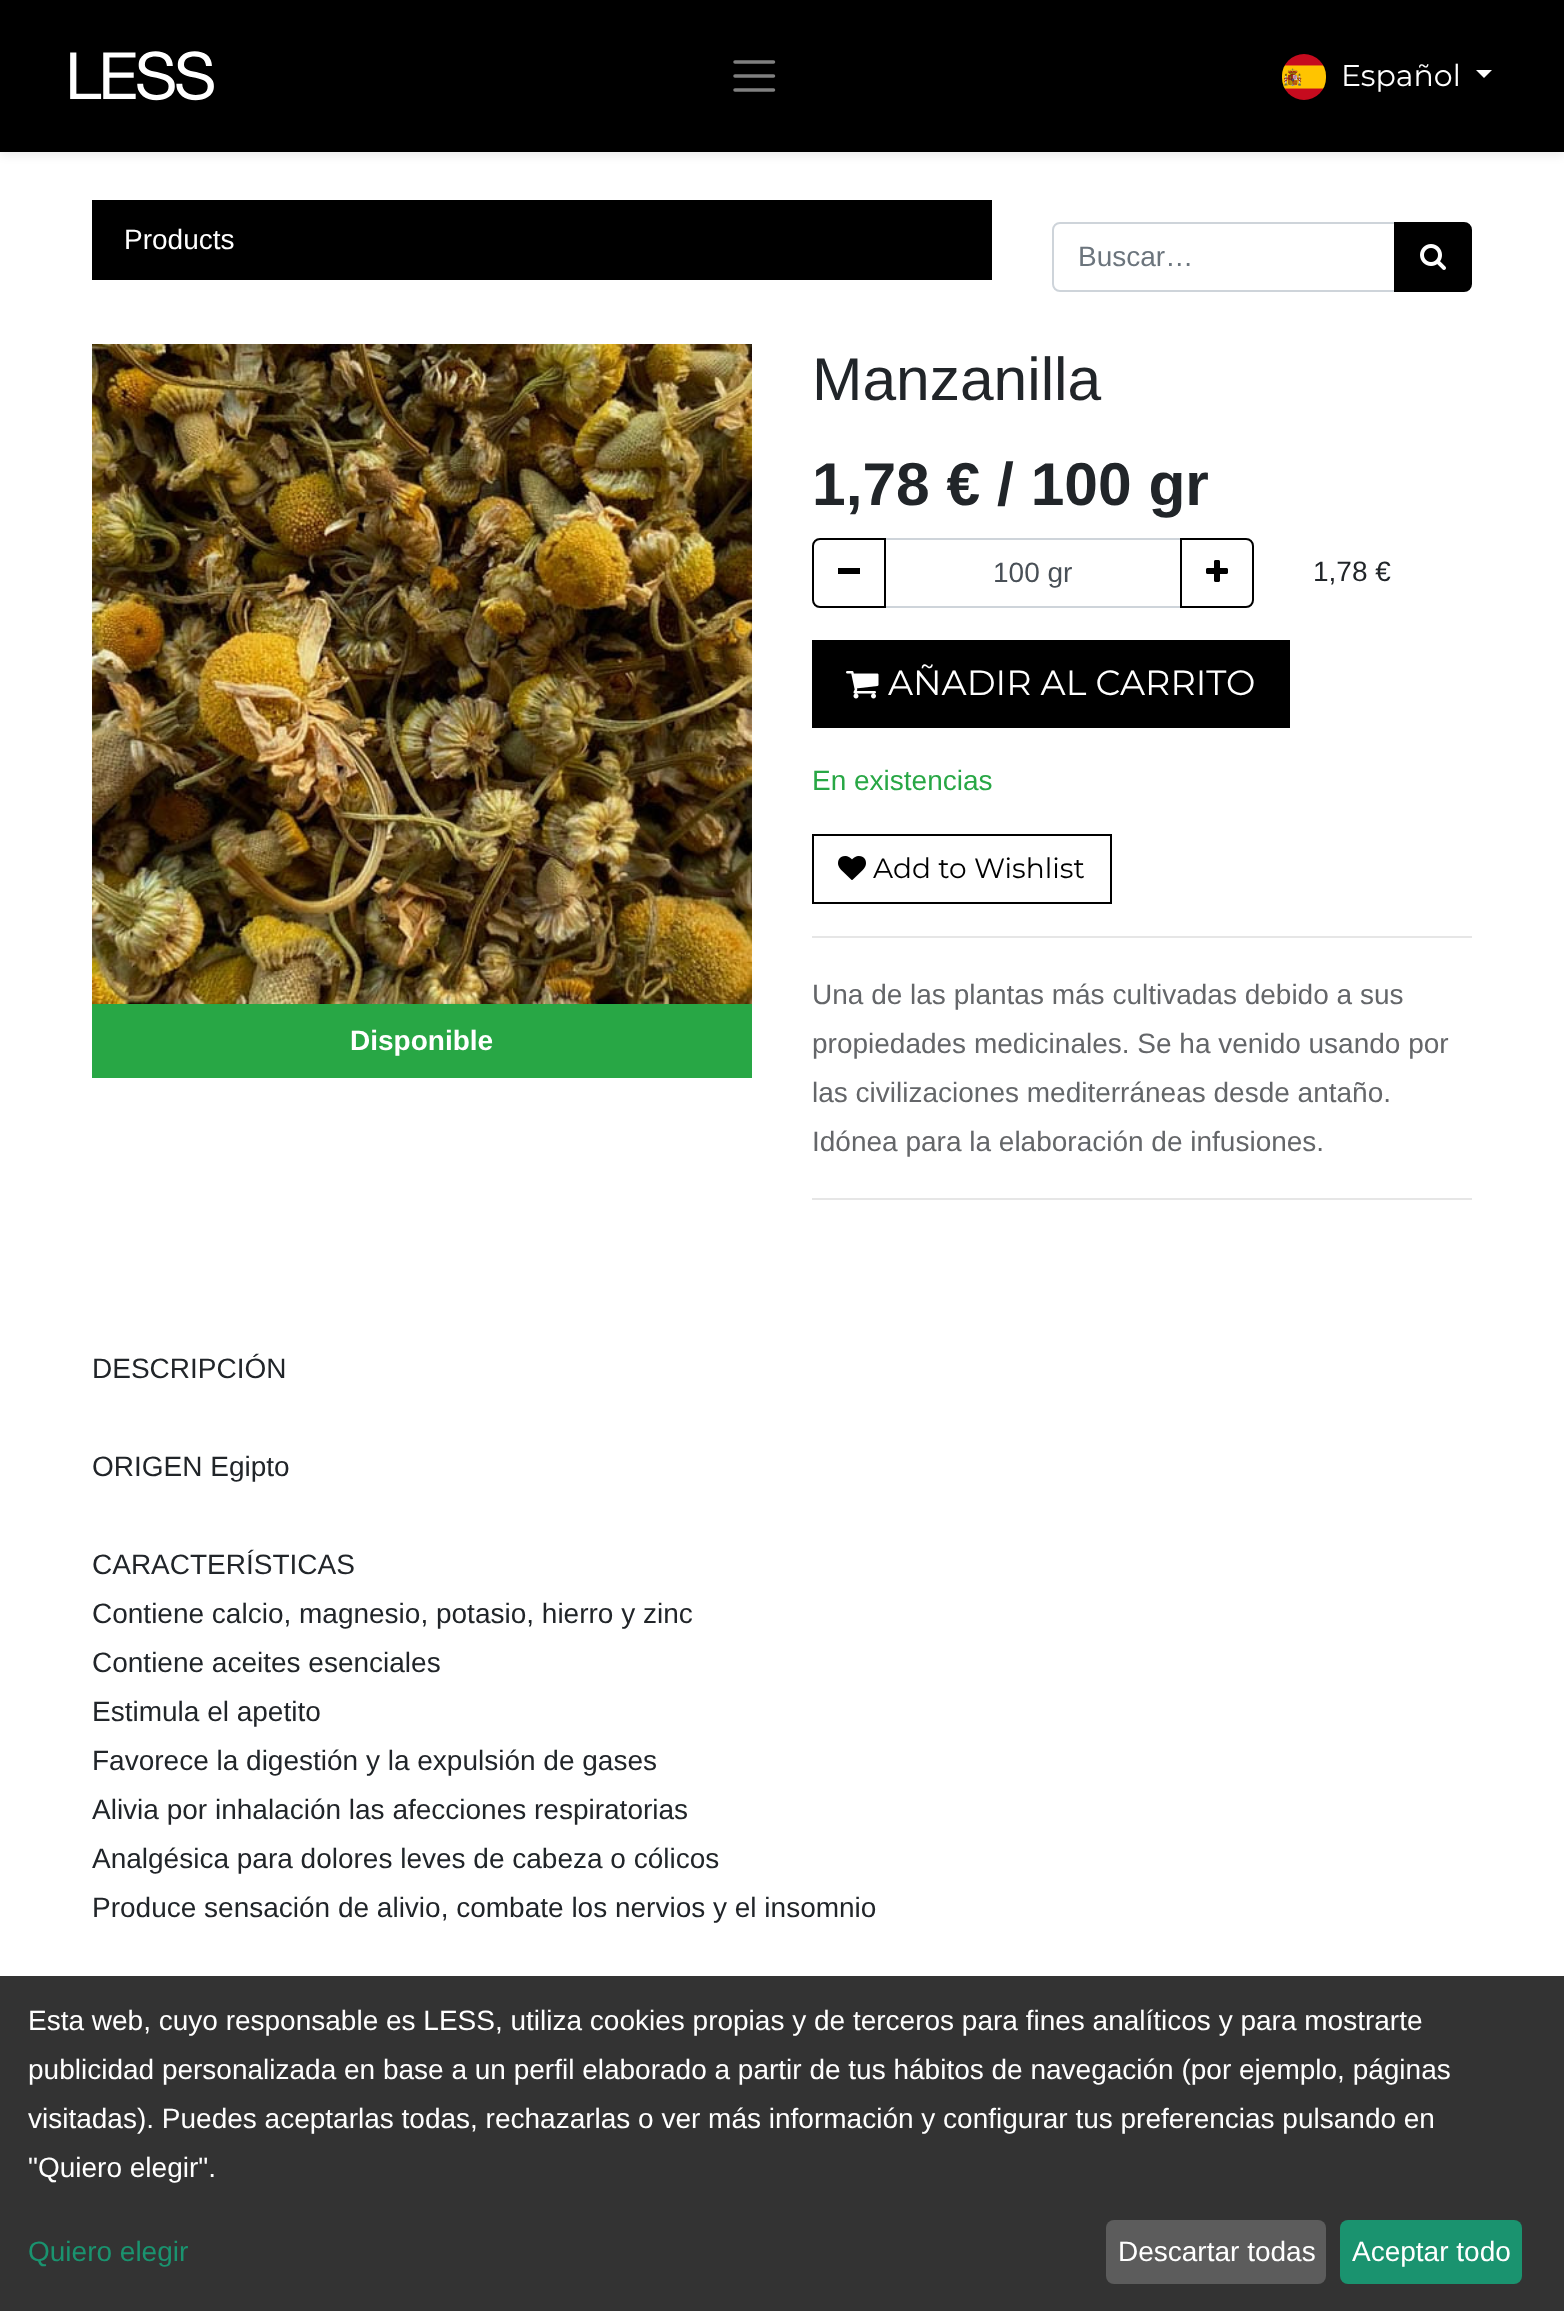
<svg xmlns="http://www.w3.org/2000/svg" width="1564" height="2311">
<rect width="100%" height="100%" fill="#fff"/>
<rect y="4" width="1564" height="152" fill="#00000012" filter="blur(4px)"/>
<rect width="1564" height="152" fill="#000"/>
<image x="70" y="51" width="144" height="50" href="media/1.png"/>
<path d="M735 62h38.5m-38.5 14h38.5m-38.5 14h38.5" fill="none" stroke="#808080" stroke-width="3.5" stroke-linecap="round"/>
<image x="1282" y="54" width="44" height="46" href="media/2.png"/>
<text x="1341" y="86" style="font-family:Montserrat;font-size:30px;fill:#fff">Español</text>
<path d="M1476 70h16l-8 8z" fill="#fff"/>
<rect x="92" y="200" width="900" height="80" fill="#000"/>
<text x="124" y="249" style="font-family:Liberation Sans;font-size:28px;fill:#fff">Products</text>
<path d="M1060 223h335v68h-335c-4 0-7-3-7-7v-54c0-4 3-7 7-7z" fill="none" stroke="#ced4da" stroke-width="2"/>
<text x="1078" y="266" style="font-family:Liberation Sans;font-size:28px;fill:#6c757d">Buscar…</text>
<path d="M1395 223h69c4 0 7 3 7 7v54c0 4-3 7-7 7h-69z" fill="#000" stroke="#000" stroke-width="2"/>
<image x="1420" y="244" width="26" height="26" href="media/3.png"/>
<image x="92" y="344" width="660" height="660" href="media/4.png"/>
<rect x="92" y="1004" width="660" height="74" fill="#28a745"/>
<text x="350" y="1050" style="font-family:Liberation Sans;font-size:28px;font-weight:bold;fill:#fff">Disponible</text>
<text x="812" y="400" style="font-family:Liberation Sans;font-size:60.5px;fill:#212529">Manzanilla</text>
<text x="812" y="505" style="font-family:Liberation Sans;font-size:60.5px;font-weight:bold;fill:#212529">1,78 € / 100 gr</text>
<rect x="885" y="539" width="296" height="68" fill="none" stroke="#ced4da" stroke-width="2"/>
<path d="M820 539h65v68h-65c-4 0-7-3-7-7v-54c0-4 3-7 7-7z" fill="none" stroke="#000" stroke-width="2"/>
<rect x="838" y="568" width="22" height="6" fill="#000"/>
<text x="993" y="582" style="font-family:Liberation Sans;font-size:28px;fill:#495057">100 gr</text>
<path d="M1181 539h65c4 0 7 3 7 7v54c0 4-3 7-7 7h-65z" fill="none" stroke="#000" stroke-width="2"/>
<image x="1206" y="560" width="22" height="22" href="media/5.png"/>
<text x="1313" y="581" style="font-family:Liberation Sans;font-size:28px;fill:#212529">1,78 €</text>
<rect x="812" y="640" width="478" height="88" fill="#000"/>
<image x="846" y="671" width="33" height="28" href="media/6.png"/>
<text x="888" y="695" style="font-family:Montserrat;font-size:35px;fill:#fff">AÑADIR AL CARRITO</text>
<text x="812" y="790" style="font-family:Liberation Sans;font-size:28px;fill:#28a745">En existencias</text>
<rect x="813" y="835" width="298" height="68" fill="none" stroke="#000" stroke-width="2"/>
<image x="838" y="856" width="28" height="24" href="media/7.png"/>
<text x="873" y="878" style="font-family:Montserrat;font-size:28px;fill:#000">Add to Wishlist</text>
<rect x="812" y="936" width="660" height="2" fill="#e6e6e6"/>
<text x="812" y="1004" style="font-family:Liberation Sans;font-size:28px;fill:#646669">Una de las plantas más cultivadas debido a sus</text>
<text x="812" y="1053" style="font-family:Liberation Sans;font-size:28px;fill:#646669">propiedades medicinales. Se ha venido usando por</text>
<text x="812" y="1102" style="font-family:Liberation Sans;font-size:28px;fill:#646669">las civilizaciones mediterráneas desde antaño.</text>
<text x="812" y="1151" style="font-family:Liberation Sans;font-size:28px;fill:#646669">Idónea para la elaboración de infusiones.</text>
<rect x="812" y="1198" width="660" height="2" fill="#e6e6e6"/>
<text x="92" y="1378" style="font-family:Liberation Sans;font-size:28px;fill:#212529">DESCRIPCIÓN</text>
<text x="92" y="1476" style="font-family:Liberation Sans;font-size:28px;fill:#212529">ORIGEN Egipto</text>
<text x="92" y="1574" style="font-family:Liberation Sans;font-size:28px;fill:#212529">CARACTERÍSTICAS</text>
<text x="92" y="1623" style="font-family:Liberation Sans;font-size:28px;fill:#212529">Contiene calcio, magnesio, potasio, hierro y zinc</text>
<text x="92" y="1672" style="font-family:Liberation Sans;font-size:28px;fill:#212529">Contiene aceites esenciales</text>
<text x="92" y="1721" style="font-family:Liberation Sans;font-size:28px;fill:#212529">Estimula el apetito</text>
<text x="92" y="1770" style="font-family:Liberation Sans;font-size:28px;fill:#212529">Favorece la digestión y la expulsión de gases</text>
<text x="92" y="1819" style="font-family:Liberation Sans;font-size:28px;fill:#212529">Alivia por inhalación las afecciones respiratorias</text>
<text x="92" y="1868" style="font-family:Liberation Sans;font-size:28px;fill:#212529">Analgésica para dolores leves de cabeza o cólicos</text>
<text x="92" y="1917" style="font-family:Liberation Sans;font-size:28px;fill:#212529">Produce sensación de alivio, combate los nervios y el insomnio</text>
<rect y="1976" width="1564" height="335" fill="#333"/>
<text x="28" y="2030" style="font-family:Liberation Sans;font-size:28px;fill:#fff">Esta web, cuyo responsable es LESS, utiliza cookies propias y de terceros para fines analíticos y para mostrarte</text>
<text x="28" y="2079" style="font-family:Liberation Sans;font-size:28px;fill:#fff">publicidad personalizada en base a un perfil elaborado a partir de tus hábitos de navegación (por ejemplo, páginas</text>
<text x="28" y="2128" style="font-family:Liberation Sans;font-size:28px;fill:#fff">visitadas). Puedes aceptarlas todas, rechazarlas o ver más información y configurar tus preferencias pulsando en</text>
<text x="28" y="2177" style="font-family:Liberation Sans;font-size:28px;fill:#fff">"Quiero elegir".</text>
<text x="28" y="2261" style="font-family:Liberation Sans;font-size:28px;fill:#1a936f">Quiero elegir</text>
<rect x="1106" y="2220" width="220" height="64" rx="8" fill="#5c5c5c"/>
<text x="1118" y="2261" style="font-family:Liberation Sans;font-size:28px;fill:#fff">Descartar todas</text>
<rect x="1340" y="2220" width="182" height="64" rx="8" fill="#1a936f"/>
<text x="1352" y="2261" style="font-family:Liberation Sans;font-size:28px;fill:#fff">Aceptar todo</text>
</svg>
